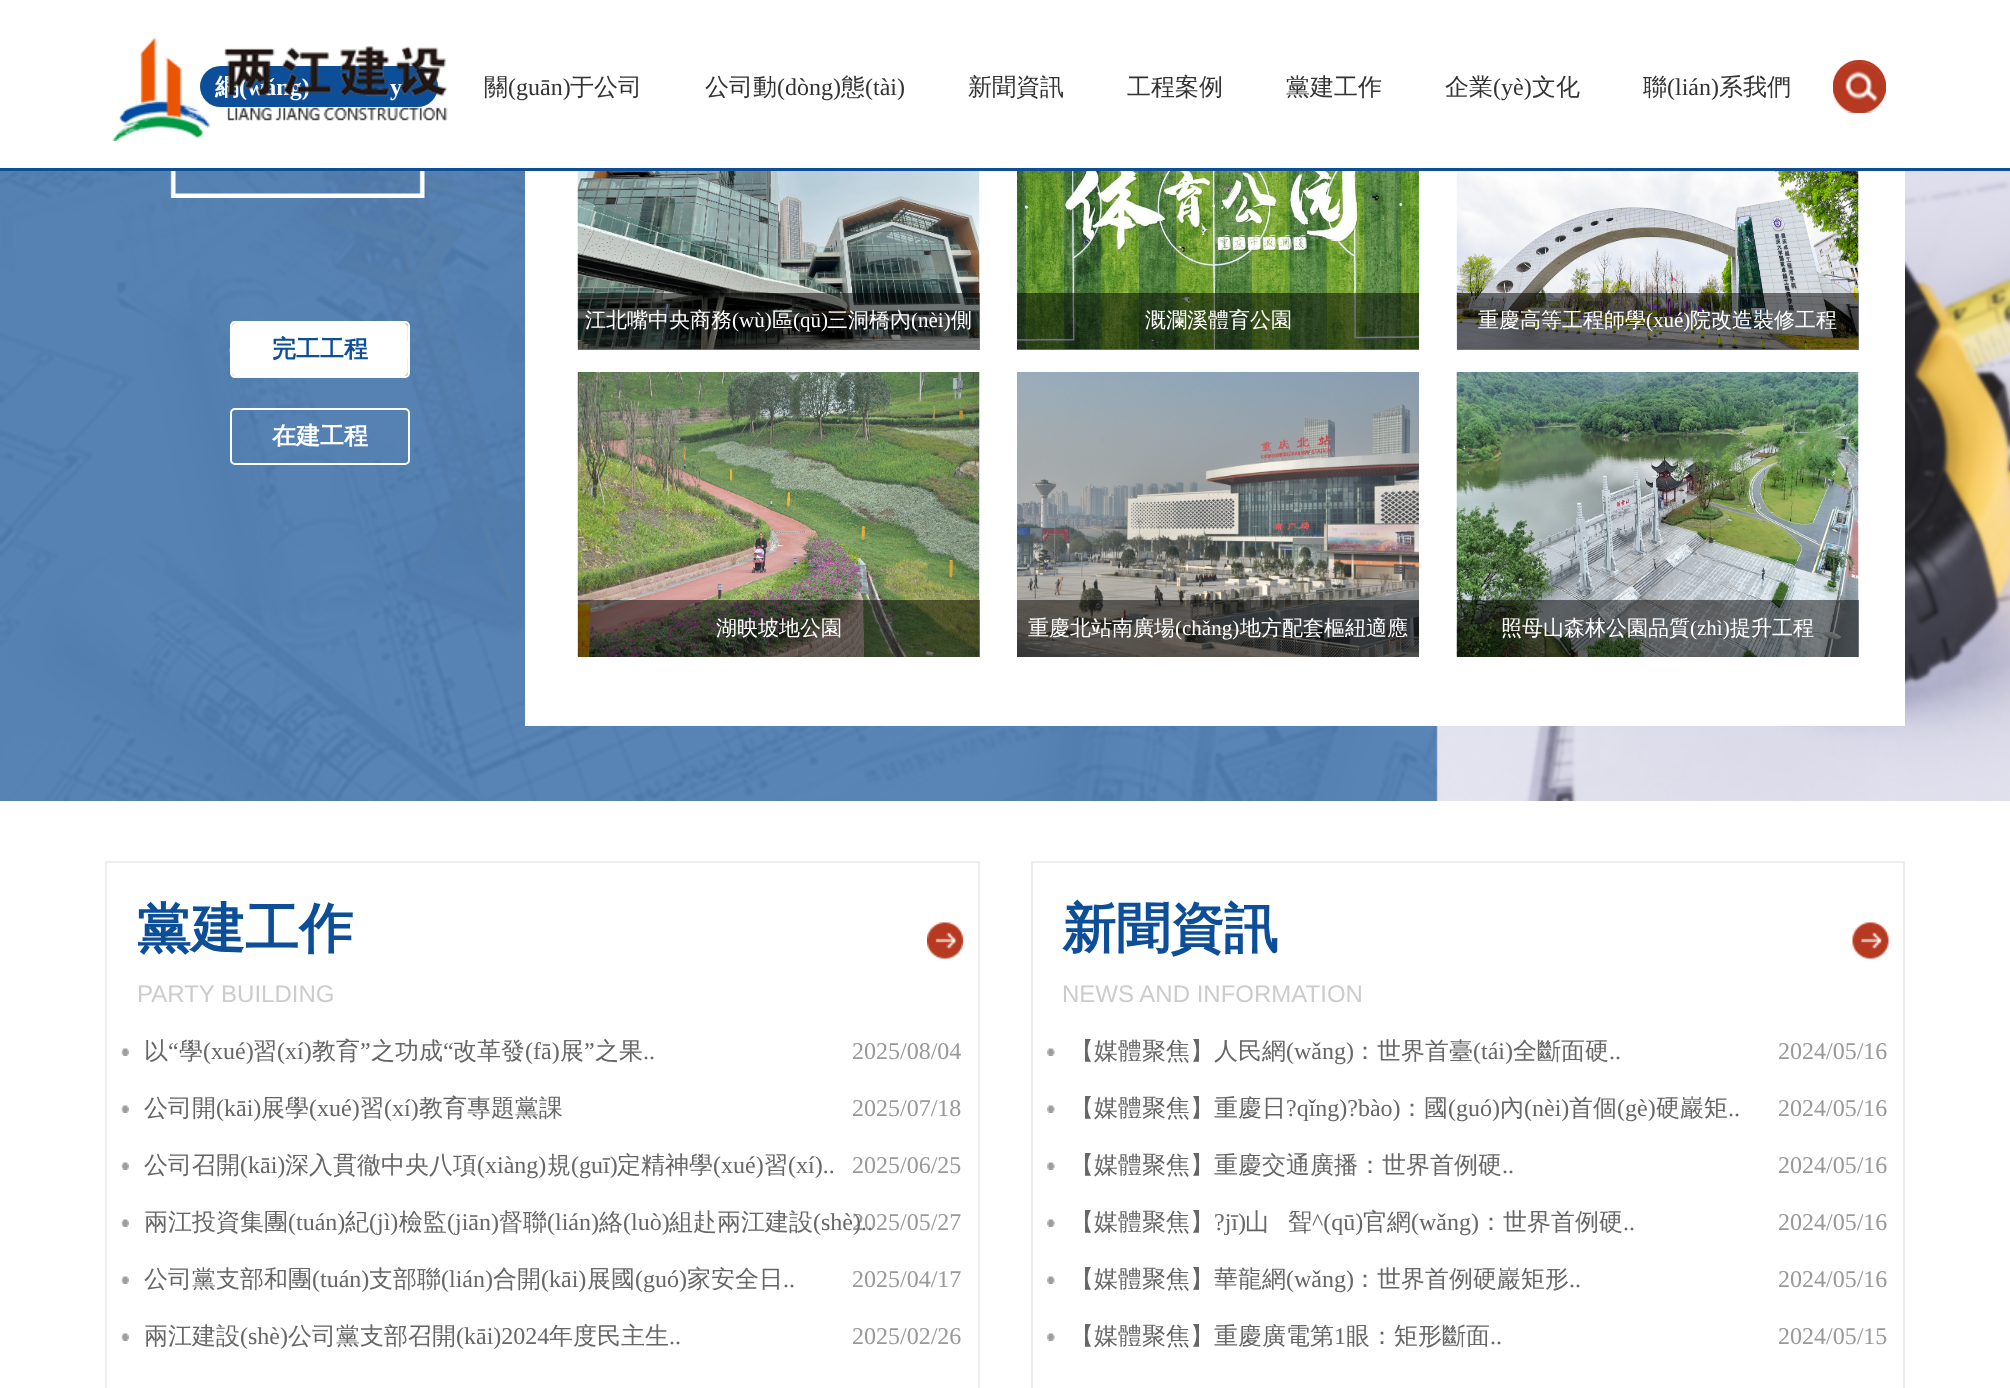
<svg xmlns="http://www.w3.org/2000/svg" width="2010" height="1388">
<rect width="100%" height="100%" fill="#fff"/>
<rect y="168" width="2010" height="3" fill="#0d4e98"/>
<rect x="200" y="66" width="238" height="41" rx="20.5" fill="#0d4e98"/>
<text x="215" y="95" style="font-family:WenQuanYi Zen Hei;font-size:24px;font-weight:bold;fill:#fff">網</text>
<text x="239" y="95" style="font-family:Liberation Serif;font-size:24px;font-weight:bold;fill:#fff">(wǎng)</text>
<text x="390" y="95" style="font-family:Liberation Serif;font-size:24px;font-weight:bold;fill:#fff">y</text>
<image x="112" y="37" width="336" height="104" href="media/1.png"/>
<circle cx="1859.5" cy="86.5" r="25.5" fill="none" stroke="#b63a22" stroke-width="2"/>
<image x="1833" y="60" width="53" height="53" href="media/2.png"/>
<text x="484" y="95" style="font-family:WenQuanYi Zen Hei;font-size:24px;font-weight:500;fill:#333">關</text>
<text x="508" y="95" style="font-family:Liberation Serif;font-size:24px;fill:#333">(guān)</text>
<text x="570" y="95" style="font-family:WenQuanYi Zen Hei;font-size:24px;font-weight:500;fill:#333">于公司</text>
<text x="705" y="95" style="font-family:WenQuanYi Zen Hei;font-size:24px;font-weight:500;fill:#333">公司動</text>
<text x="777" y="95" style="font-family:Liberation Serif;font-size:24px;fill:#333">(dòng)</text>
<text x="841" y="95" style="font-family:WenQuanYi Zen Hei;font-size:24px;font-weight:500;fill:#333">態</text>
<text x="865" y="95" style="font-family:Liberation Serif;font-size:24px;fill:#333">(tài)</text>
<text x="968" y="95" style="font-family:WenQuanYi Zen Hei;font-size:24px;font-weight:500;fill:#333">新聞資訊</text>
<text x="1127" y="95" style="font-family:WenQuanYi Zen Hei;font-size:24px;font-weight:500;fill:#333">工程案例</text>
<text x="1286" y="95" style="font-family:WenQuanYi Zen Hei;font-size:24px;font-weight:500;fill:#333">黨建工作</text>
<text x="1445" y="95" style="font-family:WenQuanYi Zen Hei;font-size:24px;font-weight:500;fill:#333">企業</text>
<text x="1493" y="95" style="font-family:Liberation Serif;font-size:24px;fill:#333">(yè)</text>
<text x="1532" y="95" style="font-family:WenQuanYi Zen Hei;font-size:24px;font-weight:500;fill:#333">文化</text>
<text x="1643" y="95" style="font-family:WenQuanYi Zen Hei;font-size:24px;font-weight:500;fill:#333">聯</text>
<text x="1667" y="95" style="font-family:Liberation Serif;font-size:24px;fill:#333">(lián)</text>
<text x="1719" y="95" style="font-family:WenQuanYi Zen Hei;font-size:24px;font-weight:500;fill:#333">系我們</text>
<image x="0" y="171" width="2010" height="630" href="media/3.png"/>
<image x="170" y="171" width="255" height="27" href="media/4.png"/>
<image x="229" y="321" width="179" height="57" href="media/5.png"/>
<rect x="231" y="322" width="178" height="55" rx="4" fill="none" stroke="#fff" stroke-width="2"/>
<text x="272" y="357" style="font-family:WenQuanYi Zen Hei;font-size:24px;font-weight:bold;fill:#0d4e98">完工工程</text>
<rect x="231" y="409" width="178" height="55" rx="4" fill="none" stroke="#fff" stroke-width="2"/>
<text x="272" y="444" style="font-family:WenQuanYi Zen Hei;font-size:24px;font-weight:bold;fill:#fff">在建工程</text>
<rect x="525" y="171" width="1380" height="555" fill="#fff"/>
<image x="577" y="171" width="403" height="179" href="media/6.png"/>
<rect x="578" y="293" width="402" height="57" fill="#00000080"/>
<text x="585" y="327" style="font-family:WenQuanYi Zen Hei;font-size:21px;font-weight:500;fill:#fff">江北嘴中央商務</text>
<text x="732" y="327" style="font-family:Liberation Serif;font-size:21px;fill:#fff">(wù)</text>
<text x="772" y="327" style="font-family:WenQuanYi Zen Hei;font-size:21px;font-weight:500;fill:#fff">區</text>
<text x="793" y="327" style="font-family:Liberation Serif;font-size:21px;fill:#fff">(qū)</text>
<text x="827" y="327" style="font-family:WenQuanYi Zen Hei;font-size:21px;font-weight:500;fill:#fff">三洞橋內</text>
<text x="911" y="327" style="font-family:Liberation Serif;font-size:21px;fill:#fff">(nèi)</text>
<text x="951" y="327" style="font-family:WenQuanYi Zen Hei;font-size:21px;font-weight:500;fill:#fff">側</text>
<image x="1017" y="171" width="402" height="179" href="media/7.png"/>
<rect x="1017" y="293" width="402" height="57" fill="#00000080"/>
<text x="1145" y="327" style="font-family:WenQuanYi Zen Hei;font-size:21px;font-weight:500;fill:#fff">溉瀾溪體育公園</text>
<image x="1456" y="171" width="403" height="179" href="media/8.png"/>
<rect x="1457" y="293" width="402" height="57" fill="#00000080"/>
<text x="1478" y="327" style="font-family:WenQuanYi Zen Hei;font-size:21px;font-weight:500;fill:#fff">重慶高等工程師學</text>
<text x="1646" y="327" style="font-family:Liberation Serif;font-size:21px;fill:#fff">(xué)</text>
<text x="1690" y="327" style="font-family:WenQuanYi Zen Hei;font-size:21px;font-weight:500;fill:#fff">院改造裝修工程</text>
<image x="577" y="372" width="403" height="285" href="media/9.png"/>
<rect x="578" y="600" width="402" height="57" fill="#00000080"/>
<text x="716" y="635" style="font-family:WenQuanYi Zen Hei;font-size:21px;font-weight:500;fill:#fff">湖映坡地公園</text>
<image x="1017" y="372" width="402" height="285" href="media/10.png"/>
<rect x="1017" y="600" width="402" height="57" fill="#00000080"/>
<text x="1028" y="635" style="font-family:WenQuanYi Zen Hei;font-size:21px;font-weight:500;fill:#fff">重慶北站南廣場</text>
<text x="1175" y="635" style="font-family:Liberation Serif;font-size:21px;fill:#fff">(chǎng)</text>
<text x="1240" y="635" style="font-family:WenQuanYi Zen Hei;font-size:21px;font-weight:500;fill:#fff">地方配套樞紐適應</text>
<image x="1456" y="372" width="403" height="285" href="media/11.png"/>
<rect x="1457" y="600" width="402" height="57" fill="#00000080"/>
<text x="1501" y="635" style="font-family:WenQuanYi Zen Hei;font-size:21px;font-weight:500;fill:#fff">照母山森林公園品質</text>
<text x="1690" y="635" style="font-family:Liberation Serif;font-size:21px;fill:#fff">(zhì)</text>
<text x="1730" y="635" style="font-family:WenQuanYi Zen Hei;font-size:21px;font-weight:500;fill:#fff">提升工程</text>
<rect x="106" y="862" width="873" height="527" fill="none" stroke="#eee" stroke-width="2"/>
<text x="137" y="947" style="font-family:WenQuanYi Zen Hei;font-size:54px;font-weight:bold;fill:#0d4e98">黨建工作</text>
<text x="137" y="1002" style="font-family:Liberation Sans;font-size:24px;fill:#ccc">PARTY BUILDING</text>
<image x="927" y="922" width="36" height="37" href="media/12.png"/>
<image x="121" y="1048" width="8" height="8" href="media/13.png"/>
<text x="144" y="1059" style="font-family:WenQuanYi Zen Hei;font-size:24px;font-weight:500;fill:#666">以</text>
<text x="168" y="1059" style="font-family:Liberation Serif;font-size:24px;fill:#666">“</text>
<text x="179" y="1059" style="font-family:WenQuanYi Zen Hei;font-size:24px;font-weight:500;fill:#666">學</text>
<text x="203" y="1059" style="font-family:Liberation Serif;font-size:24px;fill:#666">(xué)</text>
<text x="253" y="1059" style="font-family:WenQuanYi Zen Hei;font-size:24px;font-weight:500;fill:#666">習</text>
<text x="277" y="1059" style="font-family:Liberation Serif;font-size:24px;fill:#666">(xí)</text>
<text x="312" y="1059" style="font-family:WenQuanYi Zen Hei;font-size:24px;font-weight:500;fill:#666">教育</text>
<text x="360" y="1059" style="font-family:Liberation Serif;font-size:24px;fill:#666">”</text>
<text x="371" y="1059" style="font-family:WenQuanYi Zen Hei;font-size:24px;font-weight:500;fill:#666">之功成</text>
<text x="443" y="1059" style="font-family:Liberation Serif;font-size:24px;fill:#666">“</text>
<text x="453" y="1059" style="font-family:WenQuanYi Zen Hei;font-size:24px;font-weight:500;fill:#666">改革發</text>
<text x="525" y="1059" style="font-family:Liberation Serif;font-size:24px;fill:#666">(fā)</text>
<text x="560" y="1059" style="font-family:WenQuanYi Zen Hei;font-size:24px;font-weight:500;fill:#666">展</text>
<text x="584" y="1059" style="font-family:Liberation Serif;font-size:24px;fill:#666">”</text>
<text x="595" y="1059" style="font-family:WenQuanYi Zen Hei;font-size:24px;font-weight:500;fill:#666">之果</text>
<text x="852" y="1059" style="font-family:Liberation Serif;font-size:24px;fill:#999">2025/08/04</text>
<text x="643" y="1059" style="font-family:Liberation Serif;font-size:24px;fill:#666">..</text>
<image x="121" y="1105" width="8" height="8" href="media/13.png"/>
<text x="144" y="1116" style="font-family:WenQuanYi Zen Hei;font-size:24px;font-weight:500;fill:#666">公司開</text>
<text x="216" y="1116" style="font-family:Liberation Serif;font-size:24px;fill:#666">(kāi)</text>
<text x="261" y="1116" style="font-family:WenQuanYi Zen Hei;font-size:24px;font-weight:500;fill:#666">展學</text>
<text x="309" y="1116" style="font-family:Liberation Serif;font-size:24px;fill:#666">(xué)</text>
<text x="360" y="1116" style="font-family:WenQuanYi Zen Hei;font-size:24px;font-weight:500;fill:#666">習</text>
<text x="384" y="1116" style="font-family:Liberation Serif;font-size:24px;fill:#666">(xí)</text>
<text x="419" y="1116" style="font-family:WenQuanYi Zen Hei;font-size:24px;font-weight:500;fill:#666">教育專題黨課</text>
<text x="852" y="1116" style="font-family:Liberation Serif;font-size:24px;fill:#999">2025/07/18</text>
<image x="121" y="1162" width="8" height="8" href="media/13.png"/>
<text x="144" y="1173" style="font-family:WenQuanYi Zen Hei;font-size:24px;font-weight:500;fill:#666">公司召開</text>
<text x="240" y="1173" style="font-family:Liberation Serif;font-size:24px;fill:#666">(kāi)</text>
<text x="285" y="1173" style="font-family:WenQuanYi Zen Hei;font-size:24px;font-weight:500;fill:#666">深入貫徹中央八項</text>
<text x="477" y="1173" style="font-family:Liberation Serif;font-size:24px;fill:#666">(xiàng)</text>
<text x="547" y="1173" style="font-family:WenQuanYi Zen Hei;font-size:24px;font-weight:500;fill:#666">規</text>
<text x="571" y="1173" style="font-family:Liberation Serif;font-size:24px;fill:#666">(guī)</text>
<text x="617" y="1173" style="font-family:WenQuanYi Zen Hei;font-size:24px;font-weight:500;fill:#666">定精神學</text>
<text x="713" y="1173" style="font-family:Liberation Serif;font-size:24px;fill:#666">(xué)</text>
<text x="764" y="1173" style="font-family:WenQuanYi Zen Hei;font-size:24px;font-weight:500;fill:#666">習</text>
<text x="788" y="1173" style="font-family:Liberation Serif;font-size:24px;fill:#666">(xí)..</text>
<text x="852" y="1173" style="font-family:Liberation Serif;font-size:24px;fill:#999">2025/06/25</text>
<image x="121" y="1219" width="8" height="8" href="media/13.png"/>
<text x="144" y="1230" style="font-family:WenQuanYi Zen Hei;font-size:24px;font-weight:500;fill:#666">兩江投資集團</text>
<text x="288" y="1230" style="font-family:Liberation Serif;font-size:24px;fill:#666">(tuán)</text>
<text x="345" y="1230" style="font-family:WenQuanYi Zen Hei;font-size:24px;font-weight:500;fill:#666">紀</text>
<text x="369" y="1230" style="font-family:Liberation Serif;font-size:24px;fill:#666">(jì)</text>
<text x="399" y="1230" style="font-family:WenQuanYi Zen Hei;font-size:24px;font-weight:500;fill:#666">檢監</text>
<text x="447" y="1230" style="font-family:Liberation Serif;font-size:24px;fill:#666">(jiān)</text>
<text x="499" y="1230" style="font-family:WenQuanYi Zen Hei;font-size:24px;font-weight:500;fill:#666">督聯</text>
<text x="547" y="1230" style="font-family:Liberation Serif;font-size:24px;fill:#666">(lián)</text>
<text x="599" y="1230" style="font-family:WenQuanYi Zen Hei;font-size:24px;font-weight:500;fill:#666">絡</text>
<text x="623" y="1230" style="font-family:Liberation Serif;font-size:24px;fill:#666">(luò)</text>
<text x="669" y="1230" style="font-family:WenQuanYi Zen Hei;font-size:24px;font-weight:500;fill:#666">組赴兩江建設</text>
<text x="852" y="1230" style="font-family:Liberation Serif;font-size:24px;fill:#999">2025/05/27</text>
<text x="813" y="1230" style="font-family:Liberation Serif;font-size:24px;fill:#666">(shè)..</text>
<image x="121" y="1276" width="8" height="8" href="media/13.png"/>
<text x="144" y="1287" style="font-family:WenQuanYi Zen Hei;font-size:24px;font-weight:500;fill:#666">公司黨支部和團</text>
<text x="312" y="1287" style="font-family:Liberation Serif;font-size:24px;fill:#666">(tuán)</text>
<text x="369" y="1287" style="font-family:WenQuanYi Zen Hei;font-size:24px;font-weight:500;fill:#666">支部聯</text>
<text x="441" y="1287" style="font-family:Liberation Serif;font-size:24px;fill:#666">(lián)</text>
<text x="493" y="1287" style="font-family:WenQuanYi Zen Hei;font-size:24px;font-weight:500;fill:#666">合開</text>
<text x="541" y="1287" style="font-family:Liberation Serif;font-size:24px;fill:#666">(kāi)</text>
<text x="587" y="1287" style="font-family:WenQuanYi Zen Hei;font-size:24px;font-weight:500;fill:#666">展國</text>
<text x="635" y="1287" style="font-family:Liberation Serif;font-size:24px;fill:#666">(guó)</text>
<text x="687" y="1287" style="font-family:WenQuanYi Zen Hei;font-size:24px;font-weight:500;fill:#666">家安全日</text>
<text x="852" y="1287" style="font-family:Liberation Serif;font-size:24px;fill:#999">2025/04/17</text>
<text x="783" y="1287" style="font-family:Liberation Serif;font-size:24px;fill:#666">..</text>
<image x="121" y="1333" width="8" height="8" href="media/13.png"/>
<text x="144" y="1344" style="font-family:WenQuanYi Zen Hei;font-size:24px;font-weight:500;fill:#666">兩江建設</text>
<text x="240" y="1344" style="font-family:Liberation Serif;font-size:24px;fill:#666">(shè)</text>
<text x="288" y="1344" style="font-family:WenQuanYi Zen Hei;font-size:24px;font-weight:500;fill:#666">公司黨支部召開</text>
<text x="456" y="1344" style="font-family:Liberation Serif;font-size:24px;fill:#666">(kāi)2024</text>
<text x="549" y="1344" style="font-family:WenQuanYi Zen Hei;font-size:24px;font-weight:500;fill:#666">年度民主生</text>
<text x="852" y="1344" style="font-family:Liberation Serif;font-size:24px;fill:#999">2025/02/26</text>
<text x="669" y="1344" style="font-family:Liberation Serif;font-size:24px;fill:#666">..</text>
<rect x="1032" y="862" width="872" height="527" fill="none" stroke="#eee" stroke-width="2"/>
<text x="1062" y="947" style="font-family:WenQuanYi Zen Hei;font-size:54px;font-weight:bold;fill:#0d4e98">新聞資訊</text>
<text x="1062" y="1002" style="font-family:Liberation Sans;font-size:24px;fill:#ccc">NEWS AND INFORMATION</text>
<image x="1852" y="922" width="37" height="37" href="media/14.png"/>
<image x="1047" y="1048" width="8" height="8" href="media/15.png"/>
<text x="1070" y="1059" style="font-family:WenQuanYi Zen Hei;font-size:24px;font-weight:500;fill:#666">【媒體聚焦】人民網</text>
<text x="1286" y="1059" style="font-family:Liberation Serif;font-size:24px;fill:#666">(wǎng)</text>
<text x="1353" y="1059" style="font-family:WenQuanYi Zen Hei;font-size:24px;font-weight:500;fill:#666">：世界首臺</text>
<text x="1473" y="1059" style="font-family:Liberation Serif;font-size:24px;fill:#666">(tái)</text>
<text x="1513" y="1059" style="font-family:WenQuanYi Zen Hei;font-size:24px;font-weight:500;fill:#666">全斷面硬</text>
<text x="1778" y="1059" style="font-family:Liberation Serif;font-size:24px;fill:#999">2024/05/16</text>
<text x="1609" y="1059" style="font-family:Liberation Serif;font-size:24px;fill:#666">..</text>
<image x="1047" y="1105" width="8" height="8" href="media/15.png"/>
<text x="1070" y="1116" style="font-family:WenQuanYi Zen Hei;font-size:24px;font-weight:500;fill:#666">【媒體聚焦】重慶日</text>
<text x="1286" y="1116" style="font-family:Liberation Serif;font-size:24px;fill:#666">?qǐng)?bào)</text>
<text x="1400" y="1116" style="font-family:WenQuanYi Zen Hei;font-size:24px;font-weight:500;fill:#666">：國</text>
<text x="1448" y="1116" style="font-family:Liberation Serif;font-size:24px;fill:#666">(guó)</text>
<text x="1500" y="1116" style="font-family:WenQuanYi Zen Hei;font-size:24px;font-weight:500;fill:#666">內</text>
<text x="1524" y="1116" style="font-family:Liberation Serif;font-size:24px;fill:#666">(nèi)</text>
<text x="1569" y="1116" style="font-family:WenQuanYi Zen Hei;font-size:24px;font-weight:500;fill:#666">首個</text>
<text x="1617" y="1116" style="font-family:Liberation Serif;font-size:24px;fill:#666">(gè)</text>
<text x="1656" y="1116" style="font-family:WenQuanYi Zen Hei;font-size:24px;font-weight:500;fill:#666">硬巖矩</text>
<text x="1778" y="1116" style="font-family:Liberation Serif;font-size:24px;fill:#999">2024/05/16</text>
<text x="1728" y="1116" style="font-family:Liberation Serif;font-size:24px;fill:#666">..</text>
<image x="1047" y="1162" width="8" height="8" href="media/15.png"/>
<text x="1070" y="1173" style="font-family:WenQuanYi Zen Hei;font-size:24px;font-weight:500;fill:#666">【媒體聚焦】重慶交通廣播：世界首例硬</text>
<text x="1778" y="1173" style="font-family:Liberation Serif;font-size:24px;fill:#999">2024/05/16</text>
<text x="1502" y="1173" style="font-family:Liberation Serif;font-size:24px;fill:#666">..</text>
<image x="1047" y="1219" width="8" height="8" href="media/15.png"/>
<text x="1070" y="1230" style="font-family:WenQuanYi Zen Hei;font-size:24px;font-weight:500;fill:#666">【媒體聚焦】</text>
<text x="1214" y="1230" style="font-family:Liberation Serif;font-size:24px;fill:#666">?jī)</text>
<text x="1245" y="1230" style="font-family:WenQuanYi Zen Hei;font-size:24px;font-weight:500;fill:#666">山</text>
<text x="1288" y="1230" style="font-family:WenQuanYi Zen Hei;font-size:24px;font-weight:500;fill:#666">聟</text>
<text x="1312" y="1230" style="font-family:Liberation Serif;font-size:24px;fill:#666">^(qū)</text>
<text x="1363" y="1230" style="font-family:WenQuanYi Zen Hei;font-size:24px;font-weight:500;fill:#666">官網</text>
<text x="1411" y="1230" style="font-family:Liberation Serif;font-size:24px;fill:#666">(wǎng)</text>
<text x="1479" y="1230" style="font-family:WenQuanYi Zen Hei;font-size:24px;font-weight:500;fill:#666">：世界首例硬</text>
<text x="1778" y="1230" style="font-family:Liberation Serif;font-size:24px;fill:#999">2024/05/16</text>
<text x="1623" y="1230" style="font-family:Liberation Serif;font-size:24px;fill:#666">..</text>
<image x="1047" y="1276" width="8" height="8" href="media/15.png"/>
<text x="1070" y="1287" style="font-family:WenQuanYi Zen Hei;font-size:24px;font-weight:500;fill:#666">【媒體聚焦】華龍網</text>
<text x="1286" y="1287" style="font-family:Liberation Serif;font-size:24px;fill:#666">(wǎng)</text>
<text x="1353" y="1287" style="font-family:WenQuanYi Zen Hei;font-size:24px;font-weight:500;fill:#666">：世界首例硬巖矩形</text>
<text x="1778" y="1287" style="font-family:Liberation Serif;font-size:24px;fill:#999">2024/05/16</text>
<text x="1569" y="1287" style="font-family:Liberation Serif;font-size:24px;fill:#666">..</text>
<image x="1047" y="1333" width="8" height="8" href="media/15.png"/>
<text x="1070" y="1344" style="font-family:WenQuanYi Zen Hei;font-size:24px;font-weight:500;fill:#666">【媒體聚焦】重慶廣電第</text>
<text x="1334" y="1344" style="font-family:Liberation Serif;font-size:24px;fill:#666">1</text>
<text x="1346" y="1344" style="font-family:WenQuanYi Zen Hei;font-size:24px;font-weight:500;fill:#666">眼：矩形斷面</text>
<text x="1778" y="1344" style="font-family:Liberation Serif;font-size:24px;fill:#999">2024/05/15</text>
<text x="1490" y="1344" style="font-family:Liberation Serif;font-size:24px;fill:#666">..</text>
</svg>
